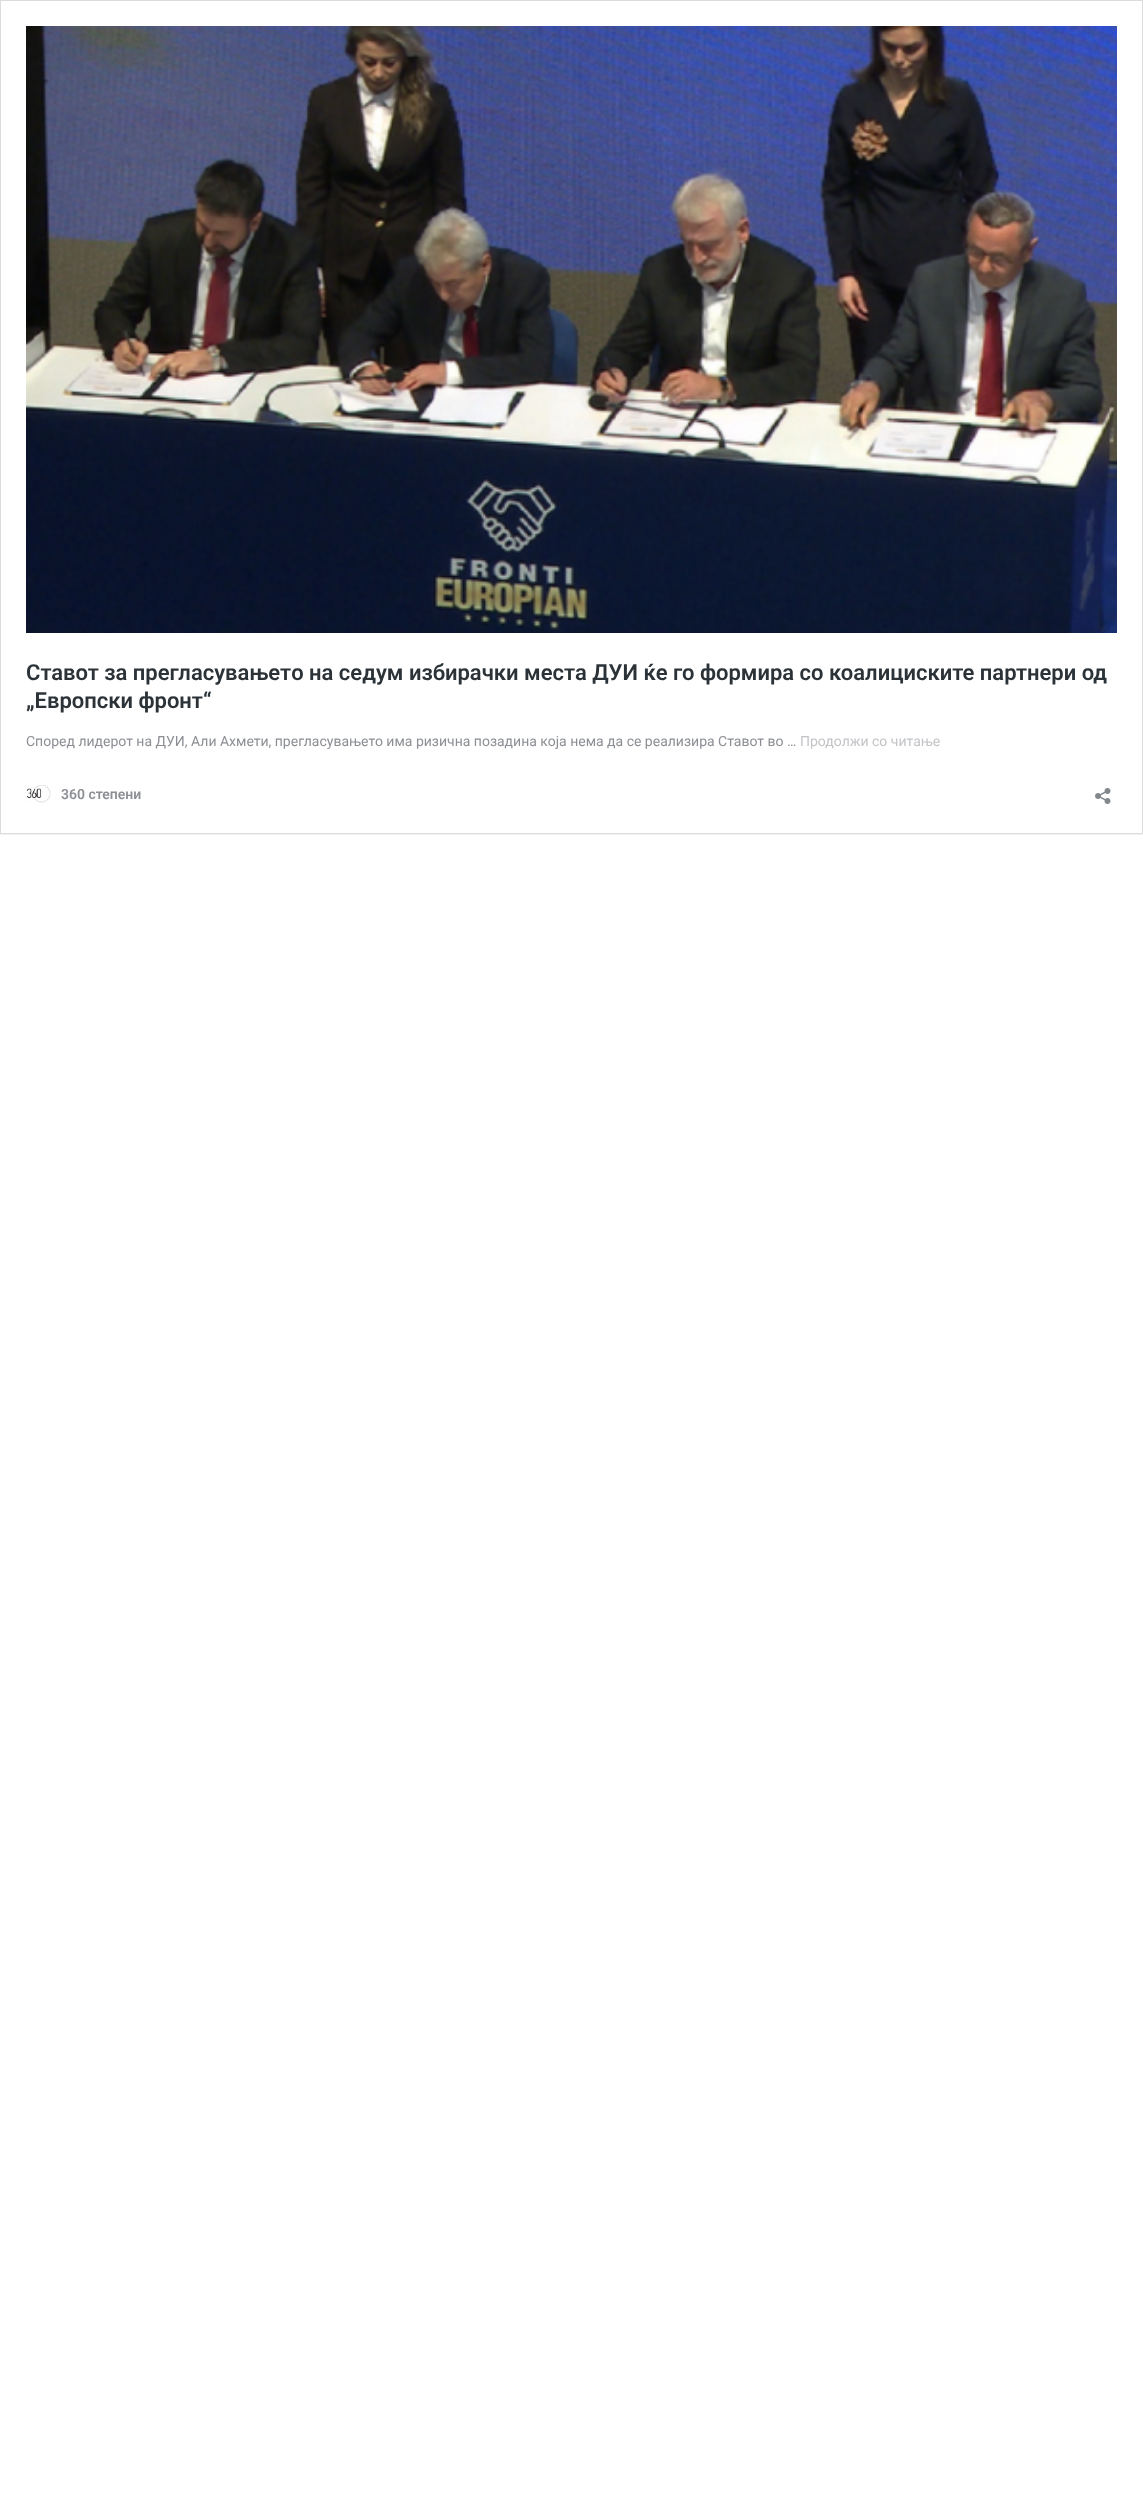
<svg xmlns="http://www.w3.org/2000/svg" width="1143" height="2514">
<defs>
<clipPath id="clip1"><rect x="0" y="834" width="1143" height="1"/></clipPath>
</defs>
<rect width="100%" height="100%" fill="#fff"/>
<g clip-path="url(#clip1)">
<rect y="1" width="1143" height="834" fill="#0000000d" filter="blur(0.5px)"/>
</g>
<rect x="0.5" y="0.5" width="1142" height="833" fill="none" stroke="#dcdcde"/>
<image x="26" y="26" width="1091" height="607" href="media/1.png"/>
<text x="26" y="680" style="font-family:Roboto;font-size:22px;font-weight:600;fill:#2c3338">Ставот за прегласувањетo на седум избирачки места ДУИ ќе го формира со коалициските партнери од</text>
<text x="26" y="708" style="font-family:Roboto;font-size:22px;font-weight:600;fill:#2c3338">„Европски фронт“</text>
<text x="26" y="746" style="font-family:Roboto;font-size:14px;fill:#8c8f94">Според лидерот на ДУИ, Али Ахмети, прегласувањето има ризична позадина која нема да се реализира Ставот во …</text>
<text x="800" y="746" style="font-family:Roboto;font-size:14px;fill:#c3c4c7">Продолжи со читање</text>
<image x="26" y="785" width="25" height="18" href="media/2.png"/>
<text x="61" y="799" style="font-family:Roboto;font-size:14px;font-weight:600;fill:#8c8f94">360 степени</text>
<image x="1095" y="788" width="16" height="16" href="media/3.png"/>
</svg>
